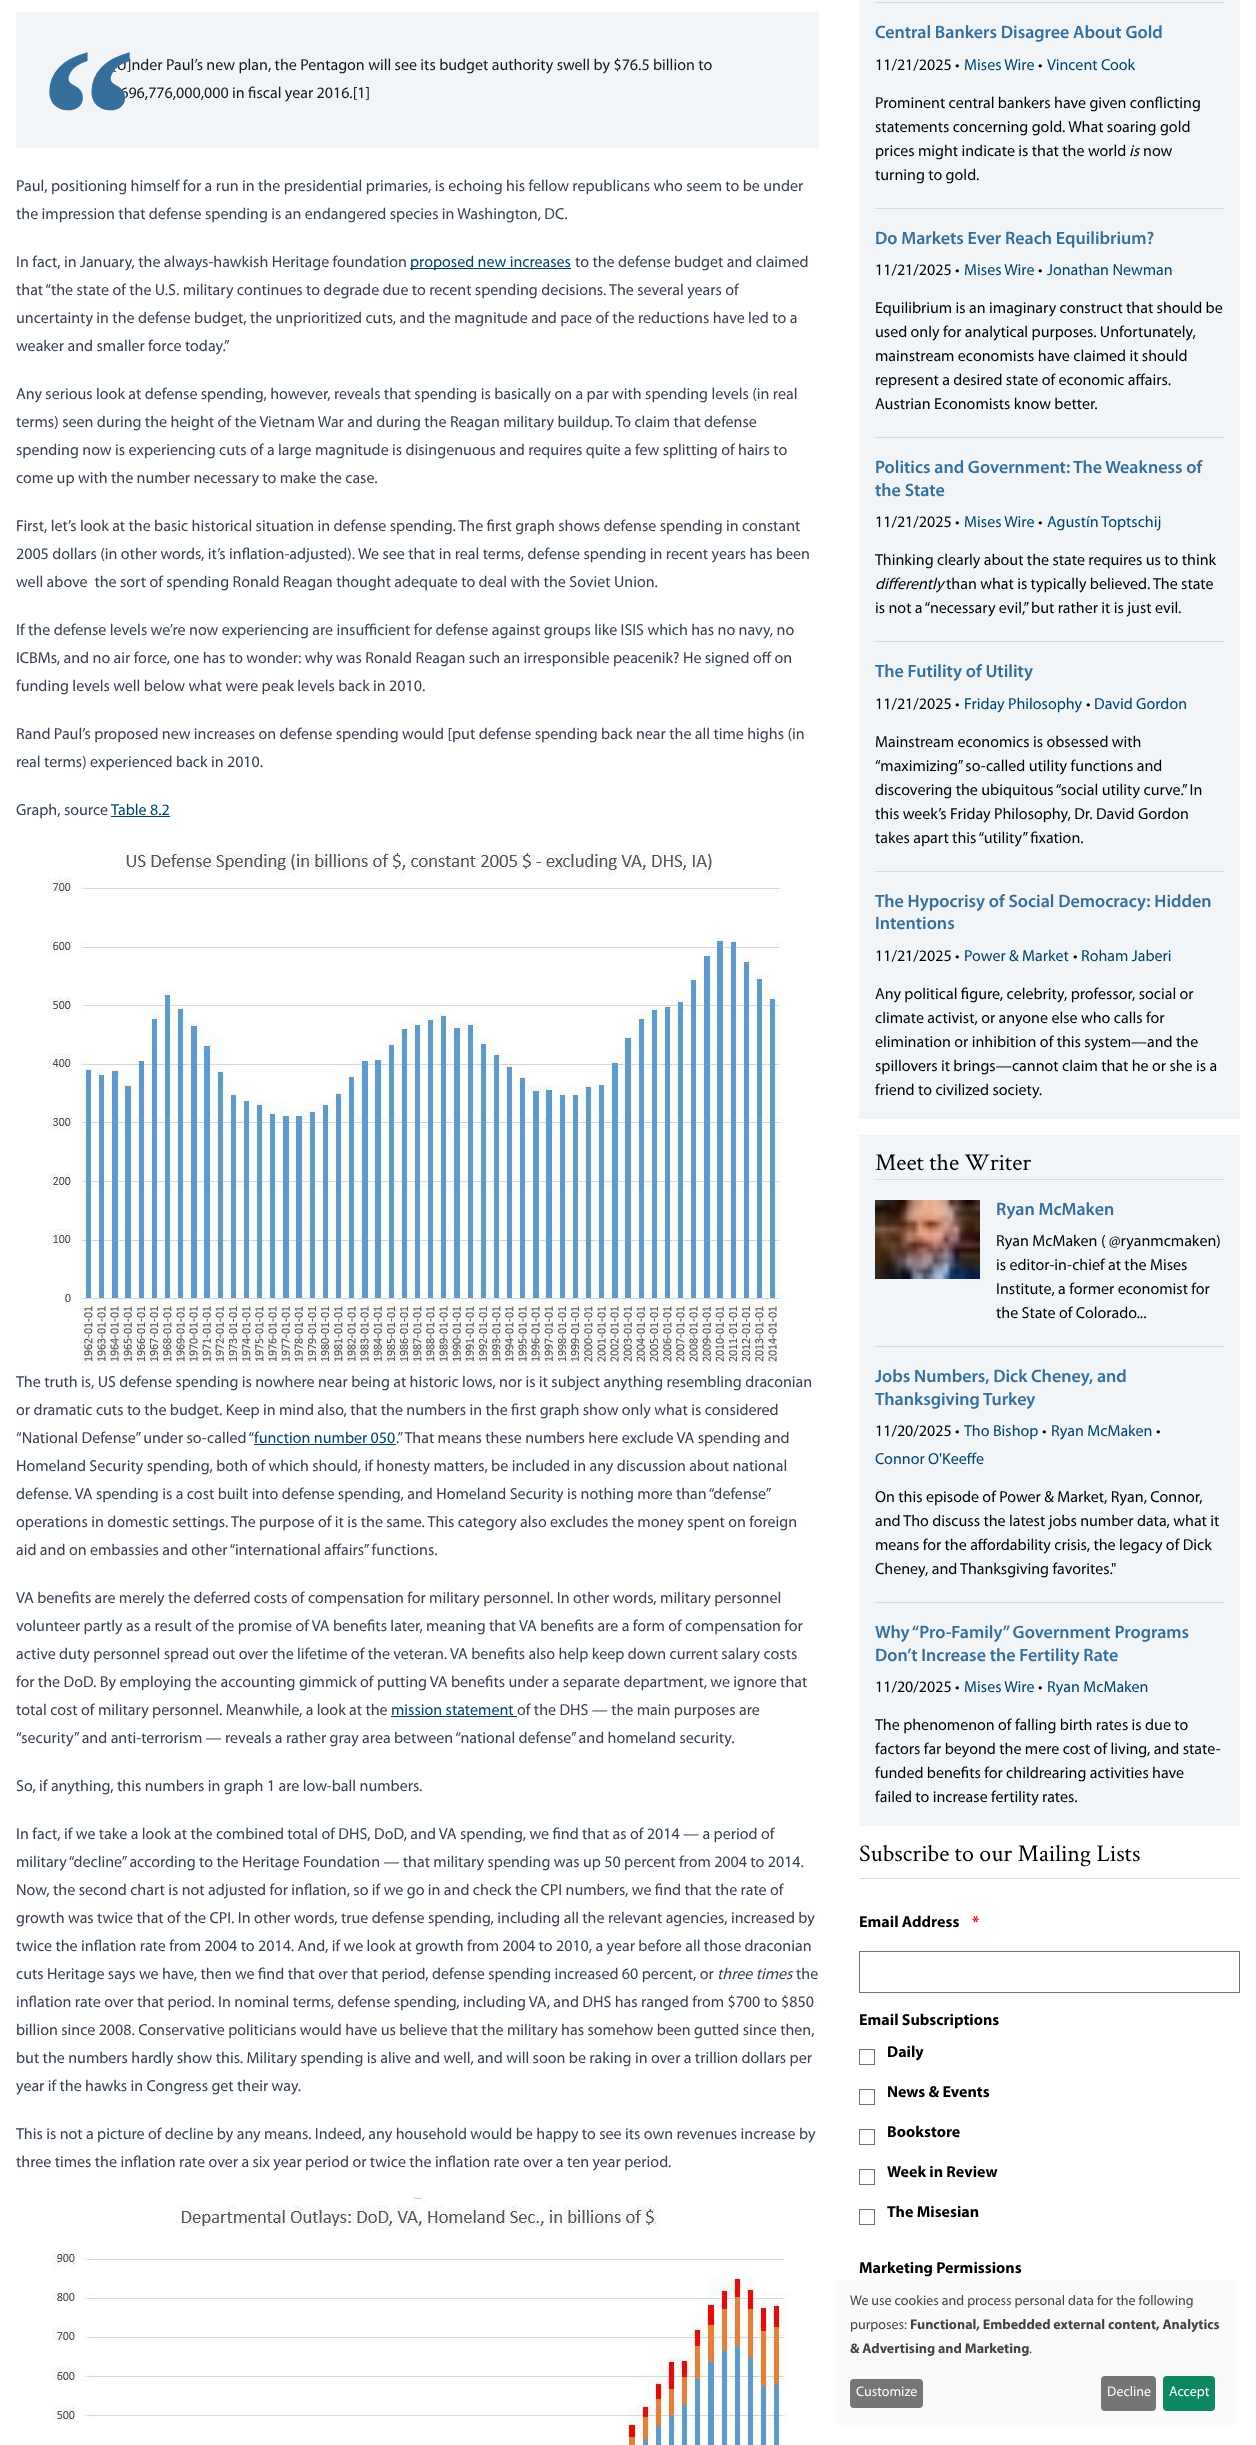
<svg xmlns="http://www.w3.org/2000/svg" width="1256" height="2445">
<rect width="100%" height="100%" fill="#fff"/>
<rect x="16" y="12" width="803" height="136" fill="#f2f5f7"/>
<text x="112" y="70" style="font-family:Myriad;font-size:16px;fill:#111827">[U]nder Paul’s new plan, the Pentagon will see its budget authority swell by $76.5 billion to</text>
<text x="112" y="98" style="font-family:Myriad;font-size:16px;fill:#111827">$696,776,000,000 in fiscal year 2016.[1]</text>
<text x="40" y="180" style="font-family:Liberation Serif;font-size:192px;font-weight:bold;fill:#366e9c">“</text>
<text x="16" y="191" style="font-family:Myriad;font-size:16px;fill:#374151">Paul, positioning himself for a run in the presidential primaries, is echoing his fellow republicans who seem to be under</text>
<text x="16" y="219" style="font-family:Myriad;font-size:16px;fill:#374151">the impression that defense spending is an endangered species in Washington, DC.</text>
<text x="16" y="267" style="font-family:Myriad;font-size:16px;fill:#374151">In fact, in January, the always-hawkish Heritage foundation</text>
<rect x="410" y="268" width="161" height="1" fill="#00426b"/>
<text x="410" y="267" style="font-family:Myriad;font-size:16px;fill:#00426b">proposed new increases</text>
<text x="575" y="267" style="font-family:Myriad;font-size:16px;fill:#374151">to the defense budget and claimed</text>
<text x="16" y="295" style="font-family:Myriad;font-size:16px;fill:#374151">that “the state of the U.S. military continues to degrade due to recent spending decisions. The several years of</text>
<text x="16" y="323" style="font-family:Myriad;font-size:16px;fill:#374151">uncertainty in the defense budget, the unprioritized cuts, and the magnitude and pace of the reductions have led to a</text>
<text x="16" y="351" style="font-family:Myriad;font-size:16px;fill:#374151">weaker and smaller force today.”</text>
<text x="16" y="399" style="font-family:Myriad;font-size:16px;fill:#374151">Any serious look at defense spending, however, reveals that spending is basically on a par with spending levels (in real</text>
<text x="16" y="427" style="font-family:Myriad;font-size:16px;fill:#374151">terms) seen during the height of the Vietnam War and during the Reagan military buildup. To claim that defense</text>
<text x="16" y="455" style="font-family:Myriad;font-size:16px;fill:#374151">spending now is experiencing cuts of a large magnitude is disingenuous and requires quite a few splitting of hairs to</text>
<text x="16" y="483" style="font-family:Myriad;font-size:16px;fill:#374151">come up with the number necessary to make the case.</text>
<text x="16" y="531" style="font-family:Myriad;font-size:16px;fill:#374151">First, let’s look at the basic historical situation in defense spending. The first graph shows defense spending in constant</text>
<text x="16" y="559" style="font-family:Myriad;font-size:16px;fill:#374151">2005 dollars (in other words, it’s inflation-adjusted). We see that in real terms, defense spending in recent years has been</text>
<text x="16" y="587" style="font-family:Myriad;font-size:16px;fill:#374151" xml:space="preserve">well above  the sort of spending Ronald Reagan thought adequate to deal with the Soviet Union.</text>
<text x="16" y="635" style="font-family:Myriad;font-size:16px;fill:#374151">If the defense levels we’re now experiencing are insufficient for defense against groups like ISIS which has no navy, no</text>
<text x="16" y="663" style="font-family:Myriad;font-size:16px;fill:#374151">ICBMs, and no air force, one has to wonder: why was Ronald Reagan such an irresponsible peacenik? He signed off on</text>
<text x="16" y="691" style="font-family:Myriad;font-size:16px;fill:#374151">funding levels well below what were peak levels back in 2010.</text>
<text x="16" y="739" style="font-family:Myriad;font-size:16px;fill:#374151">Rand Paul’s proposed new increases on defense spending would [put defense spending back near the all time highs (in</text>
<text x="16" y="767" style="font-family:Myriad;font-size:16px;fill:#374151">real terms) experienced back in 2010.</text>
<text x="16" y="815" style="font-family:Myriad;font-size:16px;fill:#374151">Graph, source</text>
<text x="111" y="815" style="font-family:Myriad;font-size:16px;fill:#00426b">Table 8.2</text>
<rect x="111" y="816" width="59" height="1" fill="#00426b"/>
<image x="48" y="853" width="737" height="512" href="media/1.png"/>
<text x="16" y="1387" style="font-family:Myriad;font-size:16px;fill:#374151">The truth is, US defense spending is nowhere near being at historic lows, nor is it subject anything resembling draconian</text>
<text x="16" y="1415" style="font-family:Myriad;font-size:16px;fill:#374151">or dramatic cuts to the budget. Keep in mind also, that the numbers in the first graph show only what is considered</text>
<text x="16" y="1443" style="font-family:Myriad;font-size:16px;fill:#374151">“National Defense” under so-called “</text>
<text x="254" y="1443" style="font-family:Myriad;font-size:16px;fill:#00426b">function number 050</text>
<rect x="254" y="1444" width="142" height="1" fill="#00426b"/>
<text x="396" y="1443" style="font-family:Myriad;font-size:16px;fill:#374151">.” That means these numbers here exclude VA spending and</text>
<text x="16" y="1471" style="font-family:Myriad;font-size:16px;fill:#374151">Homeland Security spending, both of which should, if honesty matters, be included in any discussion about national</text>
<text x="16" y="1499" style="font-family:Myriad;font-size:16px;fill:#374151">defense. VA spending is a cost built into defense spending, and Homeland Security is nothing more than “defense”</text>
<text x="16" y="1527" style="font-family:Myriad;font-size:16px;fill:#374151">operations in domestic settings. The purpose of it is the same. This category also excludes the money spent on foreign</text>
<text x="16" y="1555" style="font-family:Myriad;font-size:16px;fill:#374151">aid and on embassies and other “international affairs” functions.</text>
<text x="16" y="1603" style="font-family:Myriad;font-size:16px;fill:#374151">VA benefits are merely the deferred costs of compensation for military personnel. In other words, military personnel</text>
<text x="16" y="1631" style="font-family:Myriad;font-size:16px;fill:#374151">volunteer partly as a result of the promise of VA benefits later, meaning that VA benefits are a form of compensation for</text>
<text x="16" y="1659" style="font-family:Myriad;font-size:16px;fill:#374151">active duty personnel spread out over the lifetime of the veteran. VA benefits also help keep down current salary costs</text>
<text x="16" y="1687" style="font-family:Myriad;font-size:16px;fill:#374151">for the DoD. By employing the accounting gimmick of putting VA benefits under a separate department, we ignore that</text>
<text x="16" y="1715" style="font-family:Myriad;font-size:16px;fill:#374151">total cost of military personnel. Meanwhile, a look at the</text>
<text x="391" y="1715" style="font-family:Myriad;font-size:16px;fill:#00426b">mission statement</text>
<rect x="391" y="1716" width="126" height="1" fill="#00426b"/>
<text x="517" y="1715" style="font-family:Myriad;font-size:16px;fill:#374151">of the DHS — the main purposes are</text>
<text x="16" y="1743" style="font-family:Myriad;font-size:16px;fill:#374151">“security” and anti-terrorism — reveals a rather gray area between “national defense” and homeland security.</text>
<text x="16" y="1791" style="font-family:Myriad;font-size:16px;fill:#374151">So, if anything, this numbers in graph 1 are low-ball numbers.</text>
<text x="16" y="1839" style="font-family:Myriad;font-size:16px;fill:#374151">In fact, if we take a look at the combined total of DHS, DoD, and VA spending, we find that as of 2014 — a period of</text>
<text x="16" y="1867" style="font-family:Myriad;font-size:16px;fill:#374151">military “decline” according to the Heritage Foundation — that military spending was up 50 percent from 2004 to 2014.</text>
<text x="16" y="1895" style="font-family:Myriad;font-size:16px;fill:#374151">Now, the second chart is not adjusted for inflation, so if we go in and check the CPI numbers, we find that the rate of</text>
<text x="16" y="1923" style="font-family:Myriad;font-size:16px;fill:#374151">growth was twice that of the CPI. In other words, true defense spending, including all the relevant agencies, increased by</text>
<text x="16" y="1951" style="font-family:Myriad;font-size:16px;fill:#374151">twice the inflation rate from 2004 to 2014. And, if we look at growth from 2004 to 2010, a year before all those draconian</text>
<text x="16" y="1979" style="font-family:Myriad;font-size:16px;fill:#374151">cuts Heritage says we have, then we find that over that period, defense spending increased 60 percent, or</text>
<text x="717" y="1979" style="font-family:Myriad;font-size:16px;font-style:italic;fill:#374151">three times</text>
<text x="796" y="1979" style="font-family:Myriad;font-size:16px;fill:#374151">the</text>
<text x="16" y="2007" style="font-family:Myriad;font-size:16px;fill:#374151">inflation rate over that period. In nominal terms, defense spending, including VA, and DHS has ranged from $700 to $850</text>
<text x="16" y="2035" style="font-family:Myriad;font-size:16px;fill:#374151">billion since 2008. Conservative politicians would have us believe that the military has somehow been gutted since then,</text>
<text x="16" y="2063" style="font-family:Myriad;font-size:16px;fill:#374151">but the numbers hardly show this. Military spending is alive and well, and will soon be raking in over a trillion dollars per</text>
<text x="16" y="2091" style="font-family:Myriad;font-size:16px;fill:#374151">year if the hawks in Congress get their way.</text>
<text x="16" y="2139" style="font-family:Myriad;font-size:16px;fill:#374151">This is not a picture of decline by any means. Indeed, any household would be happy to see its own revenues increase by</text>
<text x="16" y="2167" style="font-family:Myriad;font-size:16px;fill:#374151">three times the inflation rate over a six year period or twice the inflation rate over a ten year period.</text>
<image x="52" y="2197" width="737" height="248" href="media/2.png"/>
<rect x="859" width="381" height="1119" fill="#f2f5f7"/>
<rect x="875" y="2" width="349" height="1" fill="#d9d9d9"/>
<rect x="875" y="208" width="349" height="1" fill="#d9d9d9"/>
<text x="875" y="38" style="font-family:Myriad;font-size:18px;font-weight:600;fill:#366e9c">Central Bankers Disagree About Gold</text>
<text x="875" y="70" style="font-family:Myriad;font-size:16px;fill:#000">11/21/2025</text>
<text x="955" y="70" style="font-family:Myriad;font-size:16px;fill:#000">•</text>
<text x="964" y="70" style="font-family:Myriad;font-size:16px;fill:#00426b">Mises Wire</text>
<text x="1038" y="70" style="font-family:Myriad;font-size:16px;fill:#000">•</text>
<text x="1047" y="70" style="font-family:Myriad;font-size:16px;fill:#00426b">Vincent Cook</text>
<text x="875" y="108" style="font-family:Myriad;font-size:16px;fill:#000">Prominent central bankers have given conflicting</text>
<text x="875" y="132" style="font-family:Myriad;font-size:16px;fill:#000">statements concerning gold. What soaring gold</text>
<text x="875" y="156" style="font-family:Myriad;font-size:16px;fill:#000">prices might indicate is that the world</text>
<text x="1129" y="156" style="font-family:Myriad;font-size:16px;font-style:italic;fill:#000">is</text>
<text x="1143" y="156" style="font-family:Myriad;font-size:16px;fill:#000">now</text>
<text x="875" y="180" style="font-family:Myriad;font-size:16px;fill:#000">turning to gold.</text>
<rect x="875" y="437" width="349" height="1" fill="#d9d9d9"/>
<text x="875" y="244" style="font-family:Myriad;font-size:18px;font-weight:600;fill:#366e9c">Do Markets Ever Reach Equilibrium?</text>
<text x="875" y="275" style="font-family:Myriad;font-size:16px;fill:#000">11/21/2025</text>
<text x="955" y="275" style="font-family:Myriad;font-size:16px;fill:#000">•</text>
<text x="964" y="275" style="font-family:Myriad;font-size:16px;fill:#00426b">Mises Wire</text>
<text x="1038" y="275" style="font-family:Myriad;font-size:16px;fill:#000">•</text>
<text x="1047" y="275" style="font-family:Myriad;font-size:16px;fill:#00426b">Jonathan Newman</text>
<text x="875" y="313" style="font-family:Myriad;font-size:16px;fill:#000">Equilibrium is an imaginary construct that should be</text>
<text x="875" y="337" style="font-family:Myriad;font-size:16px;fill:#000">used only for analytical purposes. Unfortunately,</text>
<text x="875" y="361" style="font-family:Myriad;font-size:16px;fill:#000">mainstream economists have claimed it should</text>
<text x="875" y="385" style="font-family:Myriad;font-size:16px;fill:#000">represent a desired state of economic affairs.</text>
<text x="875" y="409" style="font-family:Myriad;font-size:16px;fill:#000">Austrian Economists know better.</text>
<rect x="875" y="641" width="349" height="1" fill="#d9d9d9"/>
<text x="875" y="473" style="font-family:Myriad;font-size:18px;font-weight:600;fill:#366e9c">Politics and Government: The Weakness of</text>
<text x="875" y="496" style="font-family:Myriad;font-size:18px;font-weight:600;fill:#366e9c">the State</text>
<text x="875" y="527" style="font-family:Myriad;font-size:16px;fill:#000">11/21/2025</text>
<text x="955" y="527" style="font-family:Myriad;font-size:16px;fill:#000">•</text>
<text x="964" y="527" style="font-family:Myriad;font-size:16px;fill:#00426b">Mises Wire</text>
<text x="1038" y="527" style="font-family:Myriad;font-size:16px;fill:#000">•</text>
<text x="1047" y="527" style="font-family:Myriad;font-size:16px;fill:#00426b">Agustín Toptschij</text>
<text x="875" y="565" style="font-family:Myriad;font-size:16px;fill:#000">Thinking clearly about the state requires us to think</text>
<text x="875" y="589" style="font-family:Myriad;font-size:16px;font-style:italic;fill:#000">differently</text>
<text x="946" y="589" style="font-family:Myriad;font-size:16px;fill:#000">than what is typically believed. The state</text>
<text x="875" y="613" style="font-family:Myriad;font-size:16px;fill:#000">is not a “necessary evil,” but rather it is just evil.</text>
<rect x="875" y="871" width="349" height="1" fill="#d9d9d9"/>
<text x="875" y="677" style="font-family:Myriad;font-size:18px;font-weight:600;fill:#366e9c">The Futility of Utility</text>
<text x="875" y="709" style="font-family:Myriad;font-size:16px;fill:#000">11/21/2025</text>
<text x="955" y="709" style="font-family:Myriad;font-size:16px;fill:#000">•</text>
<text x="964" y="709" style="font-family:Myriad;font-size:16px;fill:#00426b">Friday Philosophy</text>
<text x="1086" y="709" style="font-family:Myriad;font-size:16px;fill:#000">•</text>
<text x="1094" y="709" style="font-family:Myriad;font-size:16px;fill:#00426b">David Gordon</text>
<text x="875" y="747" style="font-family:Myriad;font-size:16px;fill:#000">Mainstream economics is obsessed with</text>
<text x="875" y="771" style="font-family:Myriad;font-size:16px;fill:#000">“maximizing” so-called utility functions and</text>
<text x="875" y="795" style="font-family:Myriad;font-size:16px;fill:#000">discovering the ubiquitous “social utility curve.” In</text>
<text x="875" y="819" style="font-family:Myriad;font-size:16px;fill:#000">this week’s Friday Philosophy, Dr. David Gordon</text>
<text x="875" y="843" style="font-family:Myriad;font-size:16px;fill:#000">takes apart this “utility” fixation.</text>
<text x="875" y="907" style="font-family:Myriad;font-size:18px;font-weight:600;fill:#366e9c">The Hypocrisy of Social Democracy: Hidden</text>
<text x="875" y="929" style="font-family:Myriad;font-size:18px;font-weight:600;fill:#366e9c">Intentions</text>
<text x="875" y="961" style="font-family:Myriad;font-size:16px;fill:#000">11/21/2025</text>
<text x="955" y="961" style="font-family:Myriad;font-size:16px;fill:#000">•</text>
<text x="964" y="961" style="font-family:Myriad;font-size:16px;fill:#00426b">Power &amp; Market</text>
<text x="1073" y="961" style="font-family:Myriad;font-size:16px;fill:#000">•</text>
<text x="1081" y="961" style="font-family:Myriad;font-size:16px;fill:#00426b">Roham Jaberi</text>
<text x="875" y="999" style="font-family:Myriad;font-size:16px;fill:#000">Any political figure, celebrity, professor, social or</text>
<text x="875" y="1023" style="font-family:Myriad;font-size:16px;fill:#000">climate activist, or anyone else who calls for</text>
<text x="875" y="1047" style="font-family:Myriad;font-size:16px;fill:#000">elimination or inhibition of this system—and the</text>
<text x="875" y="1071" style="font-family:Myriad;font-size:16px;fill:#000">spillovers it brings—cannot claim that he or she is a</text>
<text x="875" y="1095" style="font-family:Myriad;font-size:16px;fill:#000">friend to civilized society.</text>
<rect x="859" y="1135" width="381" height="691" fill="#f2f5f7"/>
<rect x="875" y="1179" width="349" height="1" fill="#d9d9d9"/>
<text x="875" y="1170" style="font-family:Crimson Text;font-size:24px;fill:#000">Meet the Writer</text>
<rect x="875" y="1346" width="349" height="1" fill="#d9d9d9"/>
<image x="875" y="1200" width="105" height="79" href="media/3.png"/>
<text x="996" y="1215" style="font-family:Myriad;font-size:18px;font-weight:600;fill:#366e9c">Ryan McMaken</text>
<text x="996" y="1246" style="font-family:Myriad;font-size:16px;fill:#000">Ryan McMaken ( @ryanmcmaken)</text>
<text x="996" y="1270" style="font-family:Myriad;font-size:16px;fill:#000">is editor-in-chief at the Mises</text>
<text x="996" y="1294" style="font-family:Myriad;font-size:16px;fill:#000">Institute, a former economist for</text>
<text x="996" y="1318" style="font-family:Myriad;font-size:16px;fill:#000">the State of Colorado...</text>
<rect x="875" y="1602" width="349" height="1" fill="#d9d9d9"/>
<text x="875" y="1382" style="font-family:Myriad;font-size:18px;font-weight:600;fill:#366e9c">Jobs Numbers, Dick Cheney, and</text>
<text x="875" y="1405" style="font-family:Myriad;font-size:18px;font-weight:600;fill:#366e9c">Thanksgiving Turkey</text>
<text x="875" y="1436" style="font-family:Myriad;font-size:16px;fill:#000">11/20/2025</text>
<text x="955" y="1436" style="font-family:Myriad;font-size:16px;fill:#000">•</text>
<text x="964" y="1436" style="font-family:Myriad;font-size:16px;fill:#00426b">Tho Bishop</text>
<text x="1042" y="1436" style="font-family:Myriad;font-size:16px;fill:#000">•</text>
<text x="1051" y="1436" style="font-family:Myriad;font-size:16px;fill:#00426b">Ryan McMaken</text>
<text x="1156" y="1436" style="font-family:Myriad;font-size:16px;fill:#000">•</text>
<text x="875" y="1464" style="font-family:Myriad;font-size:16px;fill:#00426b">Connor O'Keeffe</text>
<text x="875" y="1502" style="font-family:Myriad;font-size:16px;fill:#000">On this episode of Power &amp; Market, Ryan, Connor,</text>
<text x="875" y="1526" style="font-family:Myriad;font-size:16px;fill:#000">and Tho discuss the latest jobs number data, what it</text>
<text x="875" y="1550" style="font-family:Myriad;font-size:16px;fill:#000">means for the affordability crisis, the legacy of Dick</text>
<text x="875" y="1574" style="font-family:Myriad;font-size:16px;fill:#000">Cheney, and Thanksgiving favorites."</text>
<text x="875" y="1638" style="font-family:Myriad;font-size:18px;font-weight:600;fill:#366e9c">Why “Pro-Family” Government Programs</text>
<text x="875" y="1661" style="font-family:Myriad;font-size:18px;font-weight:600;fill:#366e9c">Don’t Increase the Fertility Rate</text>
<text x="875" y="1692" style="font-family:Myriad;font-size:16px;fill:#000">11/20/2025</text>
<text x="955" y="1692" style="font-family:Myriad;font-size:16px;fill:#000">•</text>
<text x="964" y="1692" style="font-family:Myriad;font-size:16px;fill:#00426b">Mises Wire</text>
<text x="1038" y="1692" style="font-family:Myriad;font-size:16px;fill:#000">•</text>
<text x="1047" y="1692" style="font-family:Myriad;font-size:16px;fill:#00426b">Ryan McMaken</text>
<text x="875" y="1730" style="font-family:Myriad;font-size:16px;fill:#000">The phenomenon of falling birth rates is due to</text>
<text x="875" y="1754" style="font-family:Myriad;font-size:16px;fill:#000">factors far beyond the mere cost of living, and state-</text>
<text x="875" y="1778" style="font-family:Myriad;font-size:16px;fill:#000">funded benefits for childrearing activities have</text>
<text x="875" y="1802" style="font-family:Myriad;font-size:16px;fill:#000">failed to increase fertility rates.</text>
<rect x="859" y="1878" width="381" height="1" fill="#d9d9d9"/>
<text x="859" y="1861" style="font-family:Crimson Text;font-size:24px;fill:#000">Subscribe to our Mailing Lists</text>
<text x="859" y="1927" style="font-family:Myriad;font-size:16px;font-weight:bold;fill:#000">Email Address</text>
<text x="972" y="1927" style="font-family:Myriad;font-size:16px;font-weight:bold;fill:#e00">*</text>
<rect x="859.5" y="1951.5" width="380" height="41" fill="none" stroke="#6b7280"/>
<text x="859" y="2025" style="font-family:Myriad;font-size:16px;font-weight:bold;fill:#000">Email Subscriptions</text>
<rect x="859.5" y="2049.5" width="15" height="15" fill="none" stroke="#6b7280"/>
<text x="887" y="2057" style="font-family:Myriad;font-size:16px;font-weight:bold;fill:#000">Daily</text>
<rect x="859.5" y="2089.5" width="15" height="15" fill="none" stroke="#6b7280"/>
<text x="887" y="2097" style="font-family:Myriad;font-size:16px;font-weight:bold;fill:#000">News &amp; Events</text>
<rect x="859.5" y="2129.5" width="15" height="15" fill="none" stroke="#6b7280"/>
<text x="887" y="2137" style="font-family:Myriad;font-size:16px;font-weight:bold;fill:#000">Bookstore</text>
<rect x="859.5" y="2169.5" width="15" height="15" fill="none" stroke="#6b7280"/>
<text x="887" y="2177" style="font-family:Myriad;font-size:16px;font-weight:bold;fill:#000">Week in Review</text>
<rect x="859.5" y="2209.5" width="15" height="15" fill="none" stroke="#6b7280"/>
<text x="887" y="2217" style="font-family:Myriad;font-size:16px;font-weight:bold;fill:#000">The Misesian</text>
<text x="859" y="2273" style="font-family:Myriad;font-size:16px;font-weight:bold;fill:#000">Marketing Permissions</text>
<rect x="836" y="2280" width="400" height="145" rx="4" fill="#fafafa"/>
<text x="850" y="2305" style="font-family:Myriad;font-size:14px;fill:#444">We use cookies and process personal data for the following</text>
<text x="850" y="2329" style="font-family:Myriad;font-size:14px;fill:#444">purposes:</text>
<text x="910" y="2329" style="font-family:Myriad;font-size:14px;font-weight:bold;fill:#444">Functional, Embedded external content, Analytics</text>
<text x="850" y="2353" style="font-family:Myriad;font-size:14px;font-weight:bold;fill:#444">&amp; Advertising and Marketing</text>
<text x="1029" y="2353" style="font-family:Myriad;font-size:14px;fill:#444">.</text>
<rect x="850" y="2379" width="73" height="29" rx="4" fill="#767676"/>
<text x="856" y="2396" style="font-family:Myriad;font-size:14px;fill:#fff">Customize</text>
<rect x="1101" y="2376" width="55" height="35" rx="4" fill="#767676"/>
<text x="1107" y="2396" style="font-family:Myriad;font-size:14px;fill:#fff">Decline</text>
<rect x="1163" y="2376" width="52" height="35" rx="4" fill="#0e8763"/>
<text x="1169" y="2396" style="font-family:Myriad;font-size:14px;fill:#fff">Accept</text>
</svg>
